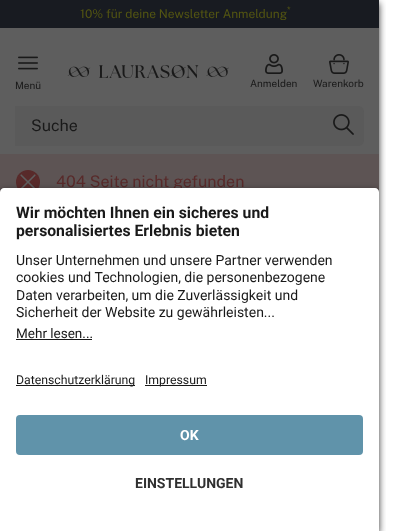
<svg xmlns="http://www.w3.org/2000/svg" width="394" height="531">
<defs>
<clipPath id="clip1"><rect x="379" y="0" width="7" height="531"/></clipPath>
<clipPath id="clip2"><rect x="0" y="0" width="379" height="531"/></clipPath>
</defs>
<rect width="100%" height="100%" fill="#fff"/>
<rect y="28" width="379" height="126" fill="#5e5e5e"/>
<rect width="379" height="28" fill="#181b21"/>
<text x="287" y="13" style="font-family:Public Sans;font-size:9px;fill:#535512">*</text>
<text x="80" y="18" style="font-family:Public Sans;font-size:12px;fill:#535512">10% für deine Newsletter Anmeldung</text>
<image x="67" y="65" width="162" height="14" href="media/1.png"/>
<image x="18" y="56" width="20" height="14" href="media/2.png"/>
<text x="15" y="89" style="font-family:Public Sans;font-size:10px;fill:#191919">Menü</text>
<image x="265" y="54" width="18" height="20" href="media/3.png"/>
<text x="250" y="87" style="font-family:Public Sans;font-size:10px;fill:#191919">Anmelden</text>
<image x="329" y="54" width="20" height="20" href="media/4.png"/>
<text x="313" y="87" style="font-family:Public Sans;font-size:10px;fill:#191919">Warenkorb</text>
<rect x="15.5" y="106.5" width="308" height="39" fill="#5a5a5a" stroke="#5a5a5a"/>
<text x="31" y="131" style="font-family:Public Sans;font-size:16px;fill:#191919">Suche</text>
<path d="M323 106h35c3.5 0 6 2.5 6 6v28c0 3.5-2.5 6-6 6h-35z" fill="#5a5a5a"/>
<image x="333" y="114" width="21" height="21" href="media/5.png"/>
<rect y="154" width="379" height="38" fill="#5d5454"/>
<circle cx="28" cy="182" r="12" fill="#582a2a"/>
<image x="20" y="174" width="16" height="14" href="media/6.png"/>
<text x="56" y="187" style="font-family:Public Sans;font-size:16px;fill:#582a2a">404 Seite nicht gefunden</text>
<g clip-path="url(#clip1)">
<rect y="3" width="379" height="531" fill="#000000cc" filter="blur(3.5px)"/>
</g>
<g clip-path="url(#clip2)">
<rect y="191" width="379" height="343" rx="4" fill="#000000cc" filter="blur(3.5px)"/>
</g>
<path d="M4 188h371c2 0 4 2 4 4v165h-379v-165c0-2 2-4 4-4z" fill="#fff"/>
<text x="16" y="218" style="font-family:Roboto;font-size:15.75px;font-weight:bold;fill:#191919">Wir möchten Ihnen ein sicheres und</text>
<text x="16" y="236" style="font-family:Roboto;font-size:15.75px;font-weight:bold;fill:#191919">personalisiertes Erlebnis bieten</text>
<text x="16" y="265" style="font-family:Roboto;font-size:14px;fill:#191919">Unser Unternehmen und unsere Partner verwenden</text>
<text x="16" y="282" style="font-family:Roboto;font-size:14px;fill:#191919">cookies und Technologien, die personenbezogene</text>
<text x="16" y="300" style="font-family:Roboto;font-size:14px;fill:#191919">Daten verarbeiten, um die Zuverlässigkeit und</text>
<text x="16" y="317" style="font-family:Roboto;font-size:14px;fill:#191919">Sicherheit der Website zu gewährleisten...</text>
<text x="16" y="338" style="font-family:Roboto;font-size:13.5px;fill:#191919">Mehr lesen...</text>
<rect x="16" y="339" width="76" height="1" fill="#191919"/>
<rect y="357" width="379" height="174" fill="#fff"/>
<rect x="16" y="385" width="119" height="1" fill="#191919"/>
<text x="16" y="384" style="font-family:Roboto;font-size:12.25px;fill:#191919">Datenschutzerklärung</text>
<rect x="145" y="385" width="62" height="1" fill="#191919"/>
<text x="145" y="384" style="font-family:Roboto;font-size:12.25px;fill:#191919">Impressum</text>
<rect x="16" y="415" width="347" height="40" rx="4" fill="#6093aa"/>
<text x="180" y="440" style="font-family:Roboto;font-size:14px;font-weight:bold;fill:#fff">OK</text>
<text x="135" y="488" style="font-family:Roboto;font-size:14px;font-weight:bold;fill:#303030">EINSTELLUNGEN</text>
</svg>
